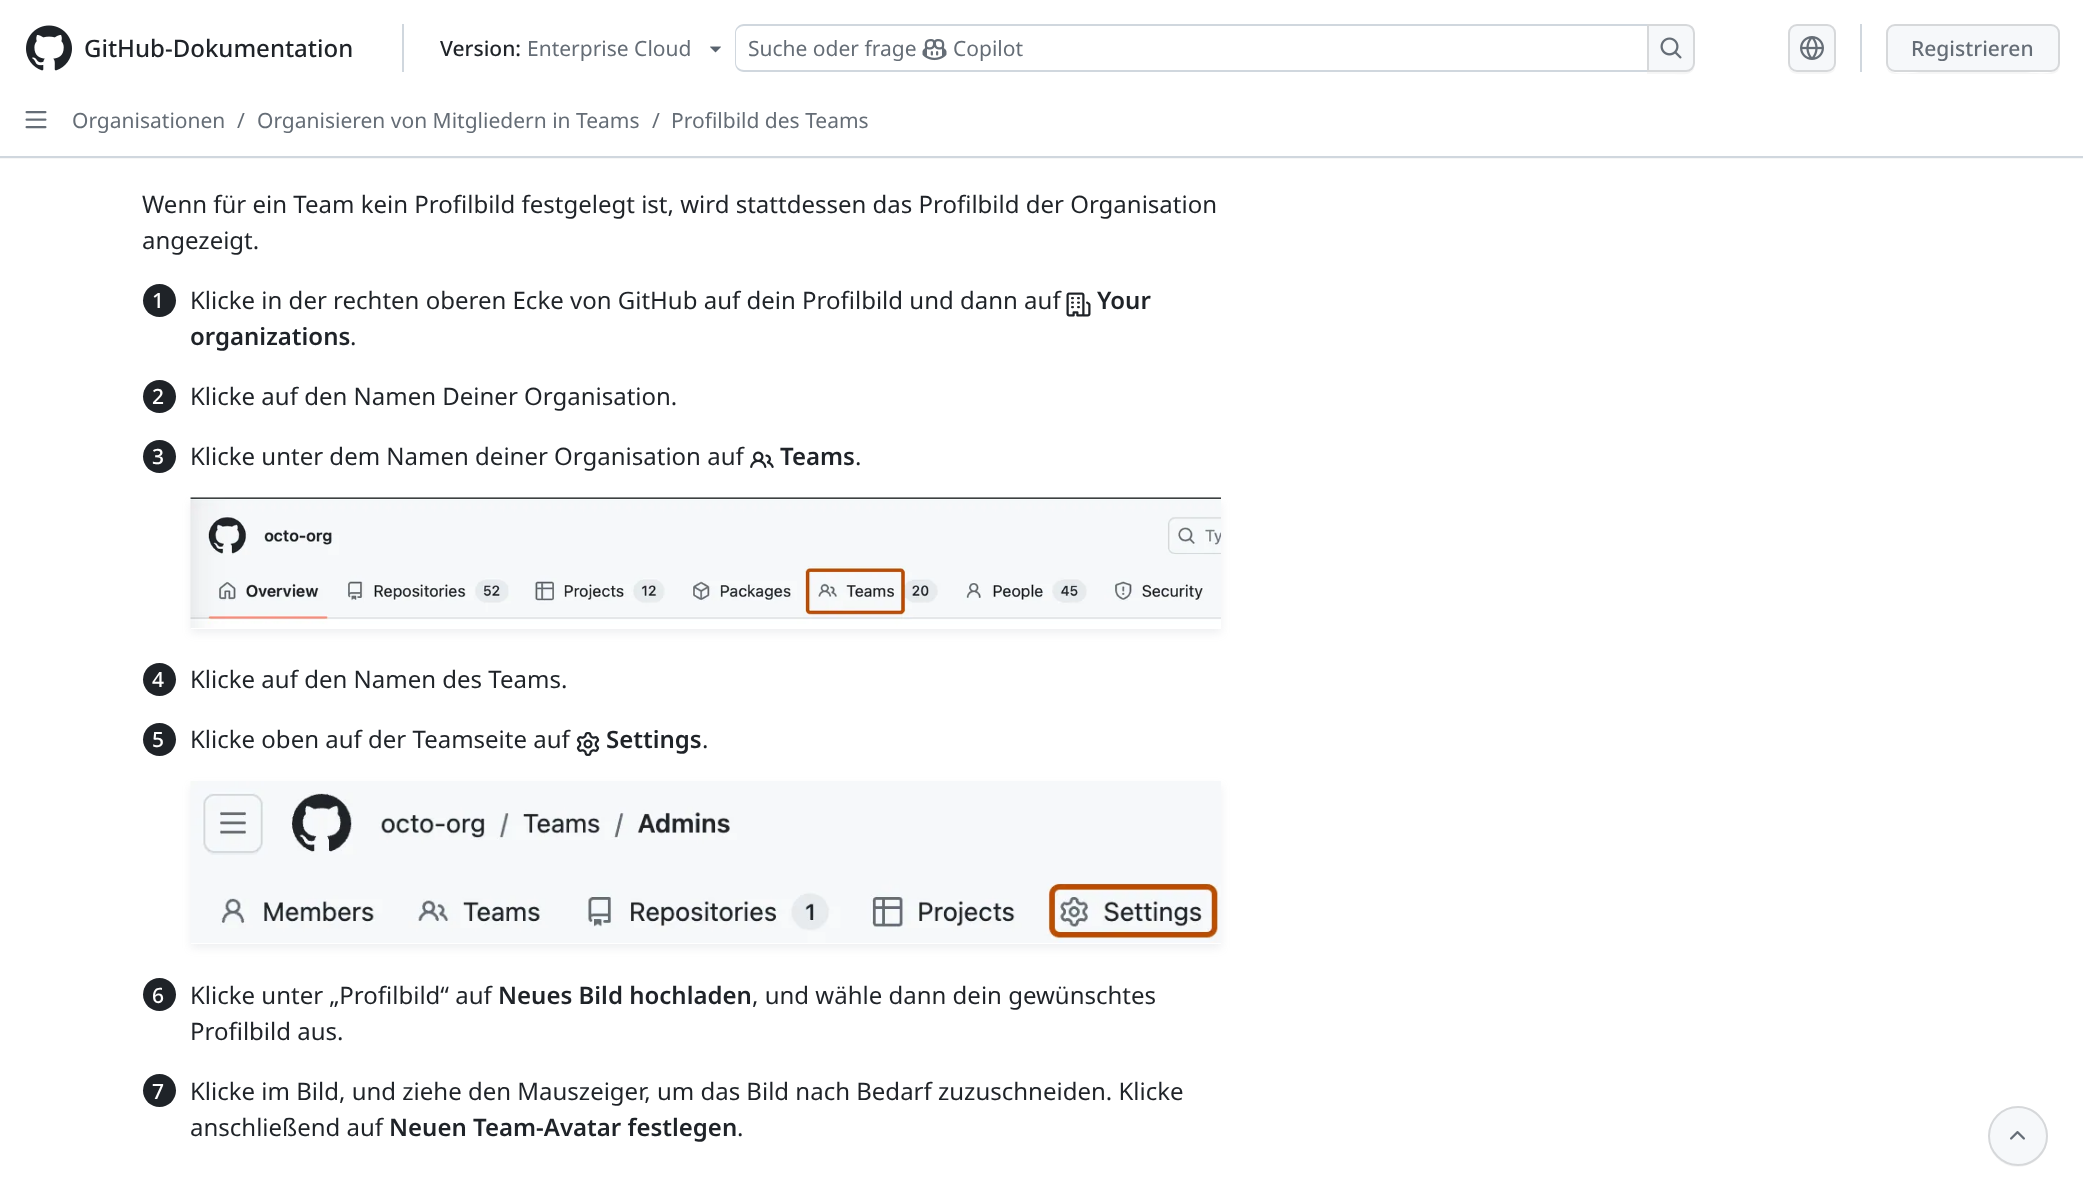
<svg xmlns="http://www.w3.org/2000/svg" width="2083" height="1201">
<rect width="100%" height="100%" fill="#fff"/>
<path d="M0 158v1h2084v-157v156z" fill="#f6f6f6"/>
<rect y="156" width="2083" height="2" fill="#d0d7de"/>
<image x="26" y="25" width="46" height="46" href="media/1.png"/>
<text x="84" y="57" style="font-family:Noto Sans;font-size:24px;font-weight:500;fill:#1f2328">GitHub-Dokumentation</text>
<rect x="402" y="24" width="2" height="48" fill="#d0d7de"/>
<text x="440" y="56" style="font-family:Noto Sans;font-size:21px;font-weight:500;fill:#1f2328">Version:</text>
<text x="527" y="56" style="font-family:Noto Sans;font-size:21px;fill:#656d76">Enterprise Cloud</text>
<image x="710" y="46" width="11" height="7" href="media/2.png"/>
<path d="M744 24h903v48h-903c-5 0-9-4-9-9v-30c0-5 4-9 9-9zm0 2h903v44h-903c-4 0-8-3-8-7v-30c0-4 4-7 8-7z" fill="#d0d7de" fill-rule="evenodd"/>
<text x="748" y="56" style="font-family:Noto Sans;font-size:21px;fill:#656d76">Suche oder frage</text>
<image x="922" y="39" width="25" height="22" href="media/3.png"/>
<text x="953" y="56" style="font-family:Noto Sans;font-size:21px;fill:#656d76">Copilot</text>
<path d="M1647 72v2h26c10 0 22 3 22-11c0 5-4 9-9 9z" fill="#f6f6f6"/>
<path d="M1647 24h39c5 0 9 4 9 9v30c0 5-4 9-9 9h-39z" fill="#f6f8fa"/>
<path d="M1648 25h38c4.5 0 8 3.5 8 8v30c0 4.5-3.5 8-8 8h-38z" fill="none" stroke="#1f232826" stroke-width="2"/>
<image x="1660" y="37" width="22" height="22" href="media/4.png"/>
<path d="M1788 63c0 10 5 11 14 11h20c9 0 14-1 14-11c0 5-4 9-9 9h-30c-5 0-9-4-9-9z" fill="#f6f6f6"/>
<rect x="1788" y="24" width="48" height="48" rx="9" fill="#f6f8fa"/>
<rect x="1789" y="25" width="46" height="46" rx="8" fill="none" stroke="#1f232826" stroke-width="2"/>
<image x="1800" y="36" width="24" height="24" href="media/5.png"/>
<rect x="1860" y="24" width="2" height="48" fill="#d0d7de"/>
<path d="M1886 66c1 5 4 8 9 8h156c5 0 9-4 9-9v-30l-1-3v33c-2 13-31 7-35 7h-104c-2 0-30 6-34-6z" fill="#f6f6f6"/>
<rect x="1886" y="24" width="174" height="48" rx="9" fill="#f6f8fa"/>
<rect x="1887" y="25" width="172" height="46" rx="8" fill="none" stroke="#1f232826" stroke-width="2"/>
<text x="1911" y="56" style="font-family:Noto Sans;font-size:21px;font-weight:500;fill:#656d76">Registrieren</text>
<image x="25" y="111" width="22" height="18" href="media/6.png"/>
<text x="72" y="128" style="font-family:Noto Sans;font-size:21px;fill:#656d76">Organisationen</text>
<text x="237" y="128" style="font-family:Noto Sans;font-size:21px;fill:#656d76">/</text>
<text x="257" y="128" style="font-family:Noto Sans;font-size:21px;fill:#656d76">Organisieren von Mitgliedern in Teams</text>
<text x="652" y="128" style="font-family:Noto Sans;font-size:21px;fill:#656d76">/</text>
<text x="671" y="128" style="font-family:Noto Sans;font-size:21px;fill:#656d76">Profilbild des Teams</text>
<text x="142" y="213" style="font-family:Noto Sans;font-size:24px;fill:#1f2328">Wenn für ein Team kein Profilbild festgelegt ist, wird stattdessen das Profilbild der Organisation</text>
<text x="142" y="249" style="font-family:Noto Sans;font-size:24px;fill:#1f2328">angezeigt.</text>
<circle cx="159.5" cy="300.5" r="16.5" fill="#1f2328"/>
<text x="152" y="308" style="font-family:Noto Sans;font-size:21px;font-weight:500;fill:#fff">1</text>
<text x="190" y="309" style="font-family:Noto Sans;font-size:24px;fill:#1f2328">Klicke in der rechten oberen Ecke von GitHub auf dein Profilbild und dann auf</text>
<image x="1066" y="292" width="25" height="25" href="media/7.png"/>
<text x="1097" y="309" style="font-family:Noto Sans;font-size:24px;font-weight:600;fill:#1f2328">Your</text>
<text x="190" y="345" style="font-family:Noto Sans;font-size:24px;font-weight:600;fill:#1f2328">organizations</text>
<text x="350" y="345" style="font-family:Noto Sans;font-size:24px;fill:#1f2328">.</text>
<circle cx="159.5" cy="396.5" r="16.5" fill="#1f2328"/>
<text x="152" y="404" style="font-family:Noto Sans;font-size:21px;font-weight:500;fill:#fff">2</text>
<text x="190" y="405" style="font-family:Noto Sans;font-size:24px;fill:#1f2328">Klicke auf den Namen Deiner Organisation.</text>
<circle cx="159.5" cy="456.5" r="16.5" fill="#1f2328"/>
<text x="152" y="464" style="font-family:Noto Sans;font-size:21px;font-weight:500;fill:#fff">3</text>
<text x="190" y="465" style="font-family:Noto Sans;font-size:24px;fill:#1f2328">Klicke unter dem Namen deiner Organisation auf</text>
<image x="750" y="451" width="24" height="17" href="media/8.png"/>
<text x="780" y="465" style="font-family:Noto Sans;font-size:24px;font-weight:600;fill:#1f2328">Teams</text>
<text x="855" y="465" style="font-family:Noto Sans;font-size:24px;fill:#1f2328">.</text>
<rect x="191" y="503" width="1030" height="130" fill="#8c959f26" filter="blur(4.5px)"/>
<image x="190" y="497" width="1031" height="131" href="media/9.png"/>
<rect x="191" y="628" width="1030" height="1" fill="#fff"/>
<circle cx="159.5" cy="679.5" r="16.5" fill="#1f2328"/>
<text x="152" y="687" style="font-family:Noto Sans;font-size:21px;font-weight:500;fill:#fff">4</text>
<text x="190" y="688" style="font-family:Noto Sans;font-size:24px;fill:#1f2328">Klicke auf den Namen des Teams.</text>
<circle cx="159.5" cy="739.5" r="16.5" fill="#1f2328"/>
<text x="152" y="747" style="font-family:Noto Sans;font-size:21px;font-weight:500;fill:#fff">5</text>
<text x="190" y="748" style="font-family:Noto Sans;font-size:24px;fill:#1f2328">Klicke oben auf der Teamseite auf</text>
<image x="576" y="732" width="24" height="24" href="media/10.png"/>
<text x="606" y="748" style="font-family:Noto Sans;font-size:24px;font-weight:600;fill:#1f2328">Settings</text>
<text x="702" y="748" style="font-family:Noto Sans;font-size:24px;fill:#1f2328">.</text>
<rect x="191" y="786" width="1030" height="162" fill="#8c959f26" filter="blur(4.5px)"/>
<image x="190" y="781" width="1031" height="162" href="media/11.png"/>
<rect x="191" y="943" width="1030" height="1" fill="#fff"/>
<circle cx="159.5" cy="994.5" r="16.5" fill="#1f2328"/>
<text x="152" y="1003" style="font-family:Noto Sans;font-size:21px;font-weight:500;fill:#fff">6</text>
<text x="190" y="1004" style="font-family:Noto Sans;font-size:24px;fill:#1f2328">Klicke unter „Profilbild“ auf</text>
<text x="498" y="1004" style="font-family:Noto Sans;font-size:24px;font-weight:600;fill:#1f2328">Neues Bild hochladen</text>
<text x="752" y="1004" style="font-family:Noto Sans;font-size:24px;fill:#1f2328">, und wähle dann dein gewünschtes</text>
<text x="190" y="1040" style="font-family:Noto Sans;font-size:24px;fill:#1f2328">Profilbild aus.</text>
<circle cx="159.5" cy="1090.5" r="16.5" fill="#1f2328"/>
<text x="152" y="1099" style="font-family:Noto Sans;font-size:21px;font-weight:500;fill:#fff">7</text>
<text x="190" y="1100" style="font-family:Noto Sans;font-size:24px;fill:#1f2328">Klicke im Bild, und ziehe den Mauszeiger, um das Bild nach Bedarf zuzuschneiden. Klicke</text>
<text x="190" y="1136" style="font-family:Noto Sans;font-size:24px;fill:#1f2328">anschließend auf</text>
<text x="389" y="1136" style="font-family:Noto Sans;font-size:24px;font-weight:600;fill:#1f2328">Neuen Team-Avatar festlegen</text>
<text x="737" y="1136" style="font-family:Noto Sans;font-size:24px;fill:#1f2328">.</text>
<path d="M1989 1146c2 6 6 11 11 15c24 18 56-7 46-34c8 27-23 50-46 33c-5-4-9-9-11-14z" fill="#f6f6f6"/>
<circle cx="2018" cy="1136" r="30" fill="#f6f8fa"/>
<circle cx="2018" cy="1136" r="29" fill="none" stroke="#1f232826" stroke-width="2"/>
<image x="2010" y="1131" width="15" height="9" href="media/12.png"/>
</svg>
